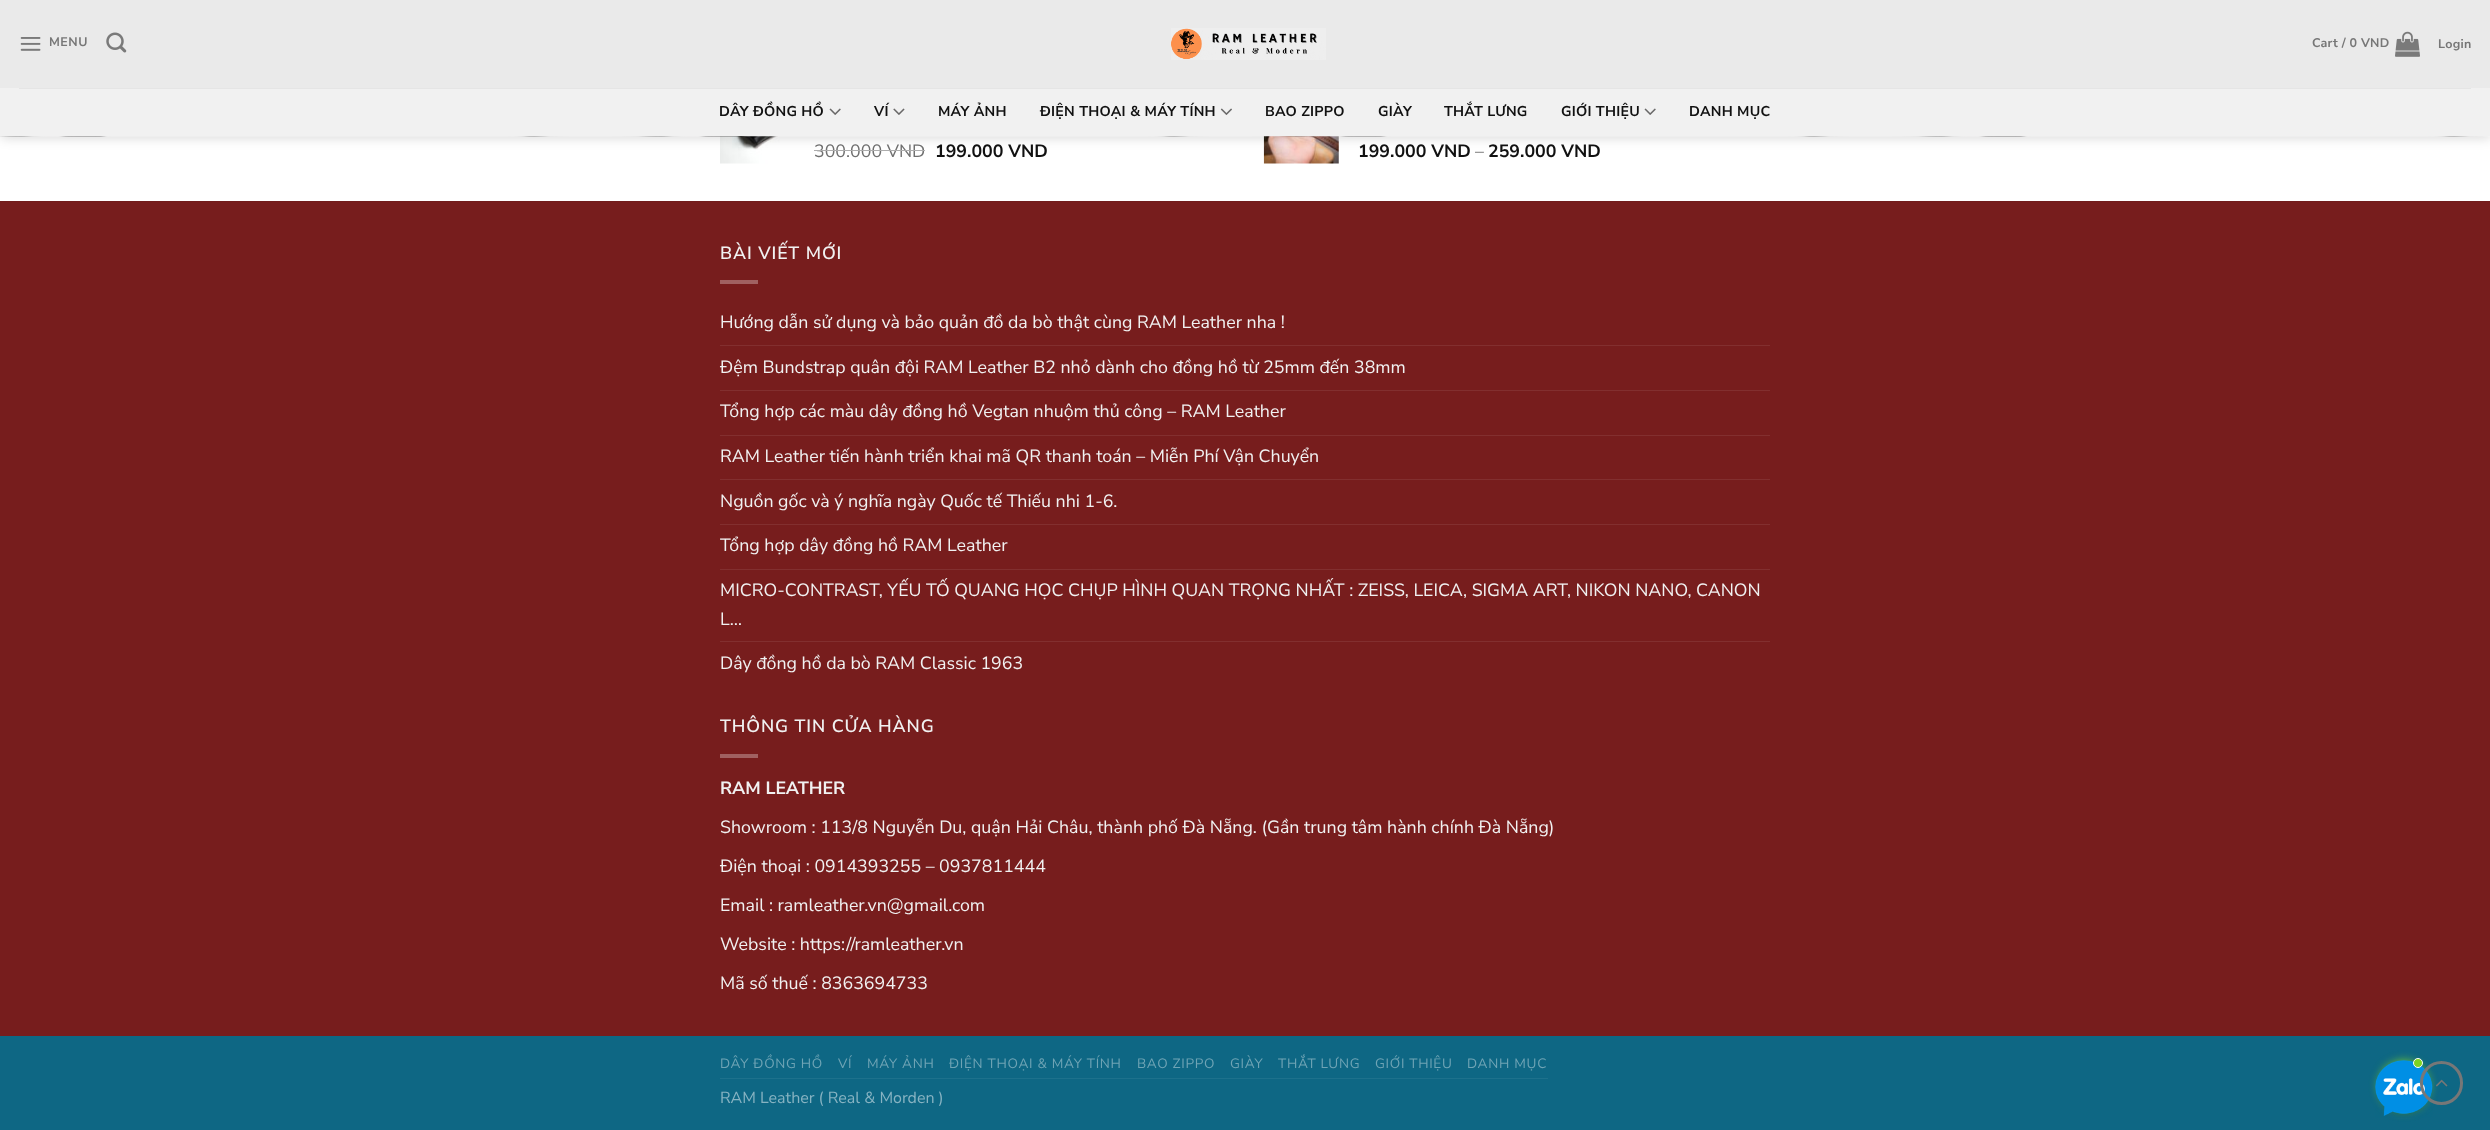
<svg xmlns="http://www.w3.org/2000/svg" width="2490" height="1130">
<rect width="100%" height="100%" fill="#fff"/>
<image x="720" y="136" width="60" height="28" href="media/9.png"/>
<text x="814" y="157" style="font-family:Nunito Sans;font-size:17.8px;fill:#707070">300.000 VND</text>
<rect x="814" y="150" width="111" height="1" fill="#adadad"/>
<image x="1263" y="136" width="76" height="28" href="media/10.png"/>
<rect x="1" y="1" width="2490" height="137" fill="#00000026" filter="blur(6px)"/>
<rect width="2490" height="88" fill="#eaeaea"/>
<image x="0" y="136" width="2490" height="1" href="media/1.png"/>
<image x="20" y="37" width="21" height="14" href="media/2.png"/>
<text x="49" y="46" style="font-family:Nunito Sans;font-size:12.5px;font-weight:bold;letter-spacing:0.5px;fill:#777">MENU</text>
<image x="106" y="32" width="21" height="21" href="media/3.png"/>
<image x="1171" y="28" width="155" height="32" href="media/4.png"/>
<text x="2312" y="47" style="font-family:Nunito Sans;font-size:12.5px;font-weight:bold;letter-spacing:0.25px;fill:#777">Cart / 0 VND</text>
<image x="2395" y="31" width="25" height="26" href="media/5.png"/>
<text x="2438" y="48" style="font-family:Nunito Sans;font-size:12.5px;font-weight:bold;letter-spacing:0.25px;fill:#777">Login</text>
<rect y="88" width="2490" height="48" fill="#f1f1f1"/>
<rect x="19" y="88" width="2452" height="1" fill="#e5e5e5"/>
<text x="719" y="116" style="font-family:Nunito Sans;font-size:14.25px;font-weight:bold;letter-spacing:0.25px;fill:#111">DÂY ĐỒNG HỒ</text>
<image x="829" y="108" width="12" height="7" href="media/6.png"/>
<text x="874" y="116" style="font-family:Nunito Sans;font-size:14.25px;font-weight:bold;letter-spacing:0.25px;fill:#111">VÍ</text>
<image x="893" y="108" width="12" height="7" href="media/7.png"/>
<text x="938" y="116" style="font-family:Nunito Sans;font-size:14.25px;font-weight:bold;letter-spacing:0.25px;fill:#111">MÁY ẢNH</text>
<text x="1040" y="116" style="font-family:Nunito Sans;font-size:14.25px;font-weight:bold;letter-spacing:0.25px;fill:#111">ĐIỆN THOẠI &amp; MÁY TÍNH</text>
<image x="1220" y="108" width="12" height="7" href="media/8.png"/>
<text x="1265" y="116" style="font-family:Nunito Sans;font-size:14.25px;font-weight:bold;letter-spacing:0.25px;fill:#111">BAO ZIPPO</text>
<text x="1378" y="116" style="font-family:Nunito Sans;font-size:14.25px;font-weight:bold;letter-spacing:0.25px;fill:#111">GIÀY</text>
<text x="1444" y="116" style="font-family:Nunito Sans;font-size:14.25px;font-weight:bold;letter-spacing:0.25px;fill:#111">THẮT LƯNG</text>
<text x="1561" y="116" style="font-family:Nunito Sans;font-size:14.25px;font-weight:bold;letter-spacing:0.25px;fill:#111">GIỚI THIỆU</text>
<image x="1644" y="108" width="12" height="7" href="media/6.png"/>
<text x="1689" y="116" style="font-family:Nunito Sans;font-size:14.25px;font-weight:bold;letter-spacing:0.25px;fill:#111">DANH MỤC</text>
<text x="935" y="157" style="font-family:Nunito Sans;font-size:17.8px;font-weight:bold;fill:#111">199.000 VND</text>
<text x="1358" y="157" style="font-family:Nunito Sans;font-size:17.8px;font-weight:bold;fill:#111">199.000 VND</text>
<text x="1475" y="157" style="font-family:Nunito Sans;font-size:17.8px;fill:#777">–</text>
<text x="1488" y="157" style="font-family:Nunito Sans;font-size:17.8px;font-weight:bold;fill:#111">259.000 VND</text>
<rect y="202" width="2490" height="834" fill="#771d1d"/>
<rect y="201" width="2490" height="1" fill="#711c1c"/>
<text x="720" y="259" style="font-family:Nunito Sans;font-size:17.8px;font-weight:600;letter-spacing:0.9px;fill:#f1f1f1">BÀI VIẾT MỚI</text>
<rect x="720" y="280" width="38" height="4" fill="#a06161"/>
<text x="720" y="328" style="font-family:Nunito Sans;font-size:17.8px;fill:#f1f1f1">Hướng dẫn sử dụng và bảo quản đồ da bò thật cùng RAM Leather nha !</text>
<rect x="720" y="345" width="1050" height="1" fill="#822f2f"/>
<text x="720" y="373" style="font-family:Nunito Sans;font-size:17.8px;fill:#f1f1f1">Đệm Bundstrap quân đội RAM Leather B2 nhỏ dành cho đồng hồ từ 25mm đến 38mm</text>
<rect x="720" y="390" width="1050" height="1" fill="#822f2f"/>
<text x="720" y="417" style="font-family:Nunito Sans;font-size:17.8px;fill:#f1f1f1">Tổng hợp các màu dây đồng hồ Vegtan nhuộm thủ công – RAM Leather</text>
<rect x="720" y="435" width="1050" height="1" fill="#822f2f"/>
<text x="720" y="462" style="font-family:Nunito Sans;font-size:17.8px;fill:#f1f1f1">RAM Leather tiến hành triển khai mã QR thanh toán – Miễn Phí Vận Chuyển</text>
<rect x="720" y="479" width="1050" height="1" fill="#822f2f"/>
<text x="720" y="507" style="font-family:Nunito Sans;font-size:17.8px;fill:#f1f1f1">Nguồn gốc và ý nghĩa ngày Quốc tế Thiếu nhi 1-6.</text>
<rect x="720" y="524" width="1050" height="1" fill="#822f2f"/>
<text x="720" y="551" style="font-family:Nunito Sans;font-size:17.8px;fill:#f1f1f1">Tổng hợp dây đồng hồ RAM Leather</text>
<rect x="720" y="569" width="1050" height="1" fill="#822f2f"/>
<text x="720" y="596" style="font-family:Nunito Sans;font-size:17.8px;fill:#f1f1f1">MICRO-CONTRAST, YẾU TỐ QUANG HỌC CHỤP HÌNH QUAN TRỌNG NHẤT : ZEISS, LEICA, SIGMA ART, NIKON NANO, CANON</text>
<text x="720" y="625" style="font-family:Nunito Sans;font-size:17.8px;fill:#f1f1f1">L…</text>
<rect x="720" y="641" width="1050" height="1" fill="#822f2f"/>
<text x="720" y="669" style="font-family:Nunito Sans;font-size:17.8px;fill:#f1f1f1">Dây đồng hồ da bò RAM Classic 1963</text>
<text x="720" y="732" style="font-family:Nunito Sans;font-size:17.8px;font-weight:600;letter-spacing:0.9px;fill:#f1f1f1">THÔNG TIN CỬA HÀNG</text>
<rect x="720" y="754" width="38" height="4" fill="#a06161"/>
<text x="720" y="794" style="font-family:Nunito Sans;font-size:17.8px;font-weight:bold;fill:#f1f1f1">RAM LEATHER</text>
<text x="720" y="833" style="font-family:Nunito Sans;font-size:17.8px;fill:#f1f1f1">Showroom : 113/8 Nguyễn Du, quận Hải Châu, thành phố Đà Nẵng. (Gần trung tâm hành chính Đà Nẵng)</text>
<text x="720" y="872" style="font-family:Nunito Sans;font-size:17.8px;fill:#f1f1f1">Điện thoại : 0914393255 – 0937811444</text>
<text x="720" y="911" style="font-family:Nunito Sans;font-size:17.8px;fill:#f1f1f1">Email : ramleather.vn@gmail.com</text>
<text x="720" y="950" style="font-family:Nunito Sans;font-size:17.8px;fill:#f1f1f1">Website : https://ramleather.vn</text>
<text x="720" y="989" style="font-family:Nunito Sans;font-size:17.8px;fill:#f1f1f1">Mã số thuế : 8363694733</text>
<rect y="1036" width="2490" height="94" fill="#0e6784"/>
<rect x="720" y="1078" width="828" height="1" fill="#1d718c"/>
<text x="720" y="1068" style="font-family:Nunito Sans;font-size:13.6px;letter-spacing:0.7px;fill:#6fa4b5">DÂY ĐỒNG HỒ</text>
<text x="838" y="1068" style="font-family:Nunito Sans;font-size:13.6px;letter-spacing:0.7px;fill:#6fa4b5">VÍ</text>
<text x="867" y="1068" style="font-family:Nunito Sans;font-size:13.6px;letter-spacing:0.7px;fill:#6fa4b5">MÁY ẢNH</text>
<text x="949" y="1068" style="font-family:Nunito Sans;font-size:13.6px;letter-spacing:0.7px;fill:#6fa4b5">ĐIỆN THOẠI &amp; MÁY TÍNH</text>
<text x="1137" y="1068" style="font-family:Nunito Sans;font-size:13.6px;letter-spacing:0.7px;fill:#6fa4b5">BAO ZIPPO</text>
<text x="1230" y="1068" style="font-family:Nunito Sans;font-size:13.6px;letter-spacing:0.7px;fill:#6fa4b5">GIÀY</text>
<text x="1278" y="1068" style="font-family:Nunito Sans;font-size:13.6px;letter-spacing:0.7px;fill:#6fa4b5">THẮT LƯNG</text>
<text x="1375" y="1068" style="font-family:Nunito Sans;font-size:13.6px;letter-spacing:0.7px;fill:#6fa4b5">GIỚI THIỆU</text>
<text x="1467" y="1068" style="font-family:Nunito Sans;font-size:13.6px;letter-spacing:0.7px;fill:#6fa4b5">DANH MỤC</text>
<text x="720" y="1103" style="font-family:Nunito Sans;font-size:16px;fill:#87b3c2">RAM Leather ( Real &amp; Morden )</text>
<rect x="2379" y="1061" width="50" height="50" rx="25" fill="#7ed321" filter="blur(5px)"/>
<image x="2375" y="1060" width="58" height="58" href="media/12.png"/>
<circle cx="2418" cy="1063" r="4.5" fill="#7ed321" stroke="#fff"/>
<rect x="2421.5" y="1062.5" width="40" height="41" rx="20" fill="none" stroke="#777" stroke-width="3"/>
<image x="2436" y="1079" width="12" height="8" href="media/11.png"/>
</svg>
